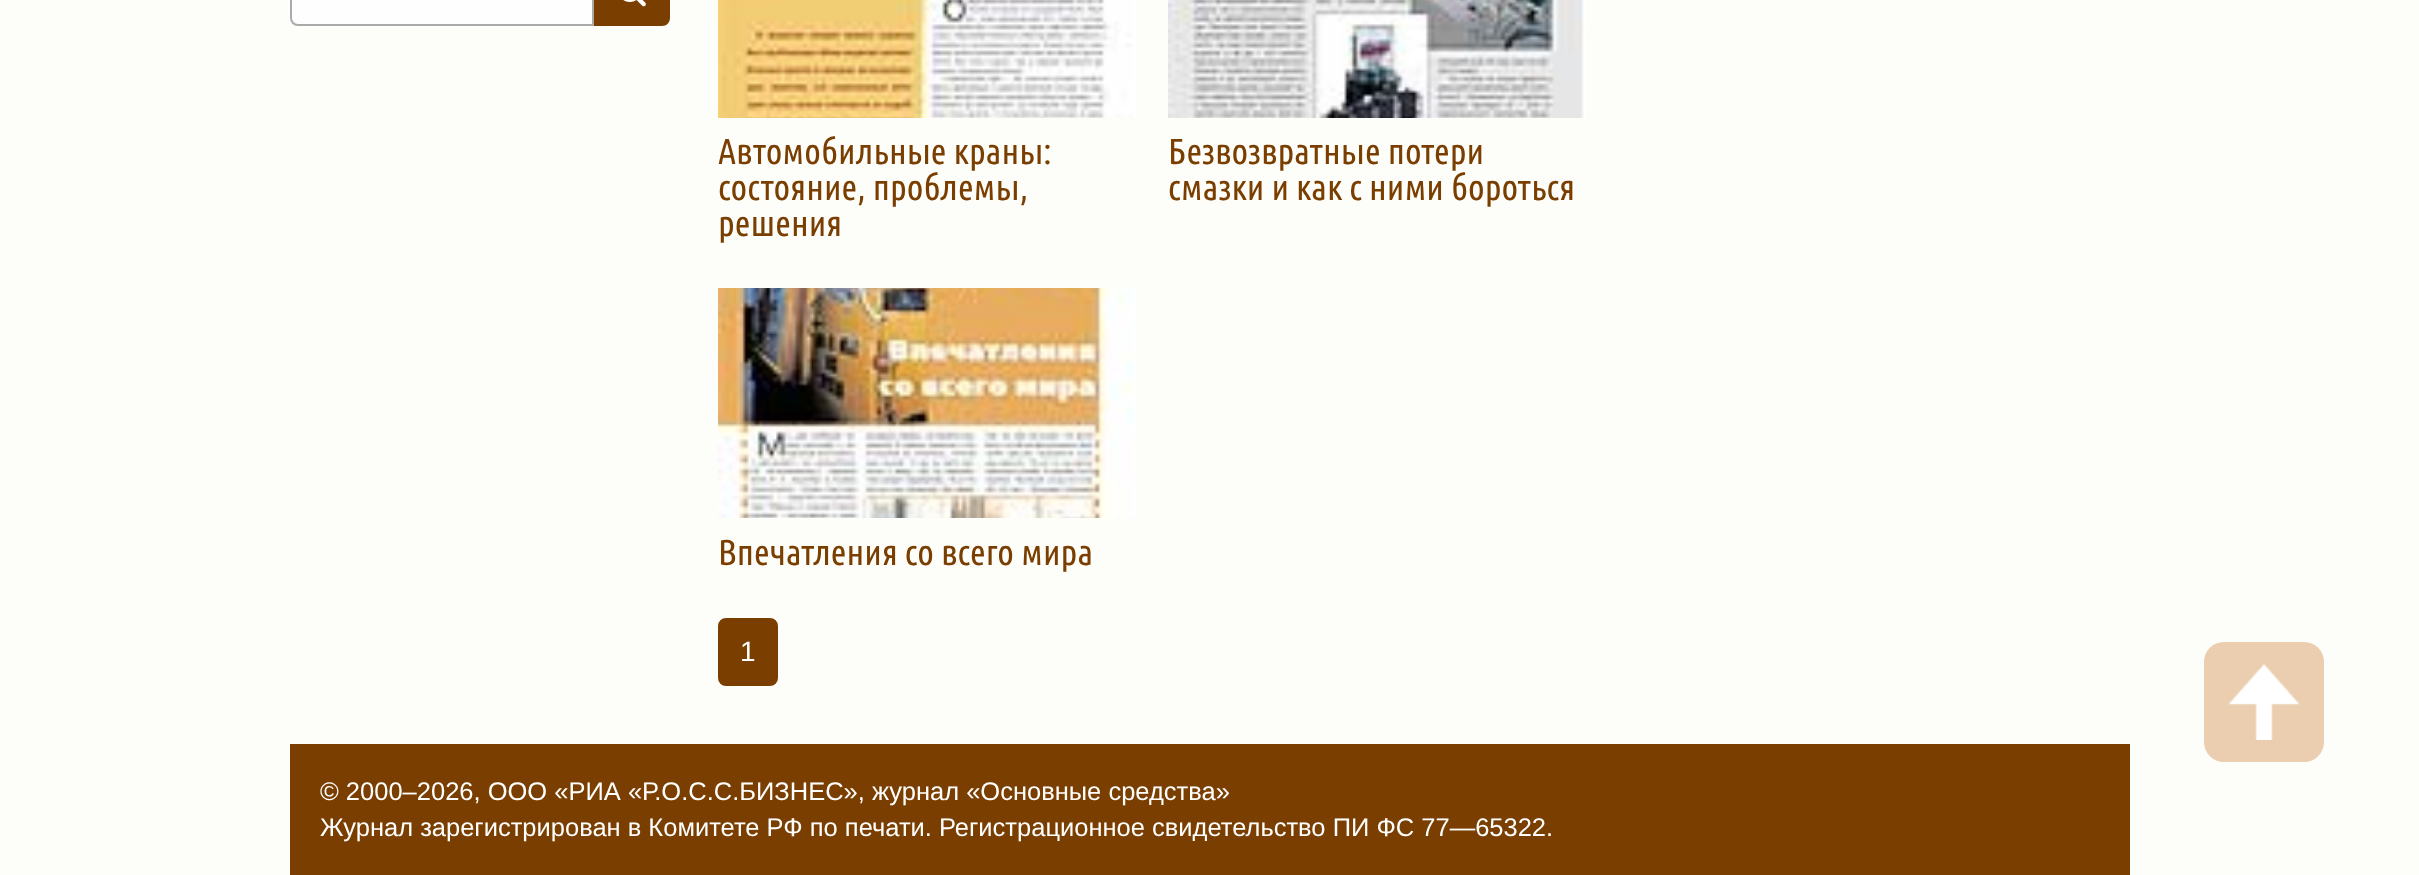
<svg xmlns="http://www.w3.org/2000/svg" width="2419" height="875">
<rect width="100%" height="100%" fill="#fdfdfa"/>
<path d="M298-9h295v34h-295c-4 0-7-3-7-7v-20c0-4 3-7 7-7z" fill="#fefefe" stroke="#aaa" stroke-width="2"/>
<path d="M594-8h68c4.5 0 8 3.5 8 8v18c0 4.5-3.5 8-8 8h-68z" fill="#7a3f00"/>
<image x="623" y="0" width="23" height="7" href="media/1.png"/>
<image x="718" y="0" width="418" height="118" href="media/2.png"/>
<text x="718" y="164" style="font-family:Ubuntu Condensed;font-size:36px;fill:#7a3f00">Автомобильные краны:</text>
<text x="718" y="200" style="font-family:Ubuntu Condensed;font-size:36px;fill:#7a3f00">состояние, проблемы,</text>
<text x="718" y="236" style="font-family:Ubuntu Condensed;font-size:36px;fill:#7a3f00">решения</text>
<image x="1168" y="0" width="418" height="118" href="media/3.png"/>
<text x="1168" y="164" style="font-family:Ubuntu Condensed;font-size:36px;fill:#7a3f00">Безвозвратные потери</text>
<text x="1168" y="200" style="font-family:Ubuntu Condensed;font-size:36px;fill:#7a3f00">смазки и как с ними бороться</text>
<image x="718" y="288" width="418" height="230" href="media/4.png"/>
<text x="718" y="565" style="font-family:Ubuntu Condensed;font-size:36px;fill:#7a3f00">Впечатления со всего мира</text>
<rect x="719" y="619" width="58" height="66" rx="7" fill="#7a3f00" stroke="#7a3f00" stroke-width="2"/>
<text x="740" y="661" style="font-family:Liberation Sans;font-size:28px;fill:#fff">1</text>
<rect x="2204" y="642" width="120" height="120" rx="20" fill="#eaceaf"/>
<image x="2228" y="664" width="72" height="76" href="media/5.png"/>
<rect x="290" y="744" width="1840" height="131" fill="#7a3f00"/>
<text x="320" y="800" style="font-family:Liberation Sans;font-size:25.5px;fill:#fff">© 2000–2026, ООО «РИА «Р.О.С.С.БИЗНЕС», журнал «Основные средства»</text>
<text x="320" y="836" style="font-family:Liberation Sans;font-size:25.5px;fill:#fff">Журнал зарегистрирован в Комитете РФ по печати. Регистрационное свидетельство ПИ ФС 77—65322.</text>
</svg>
